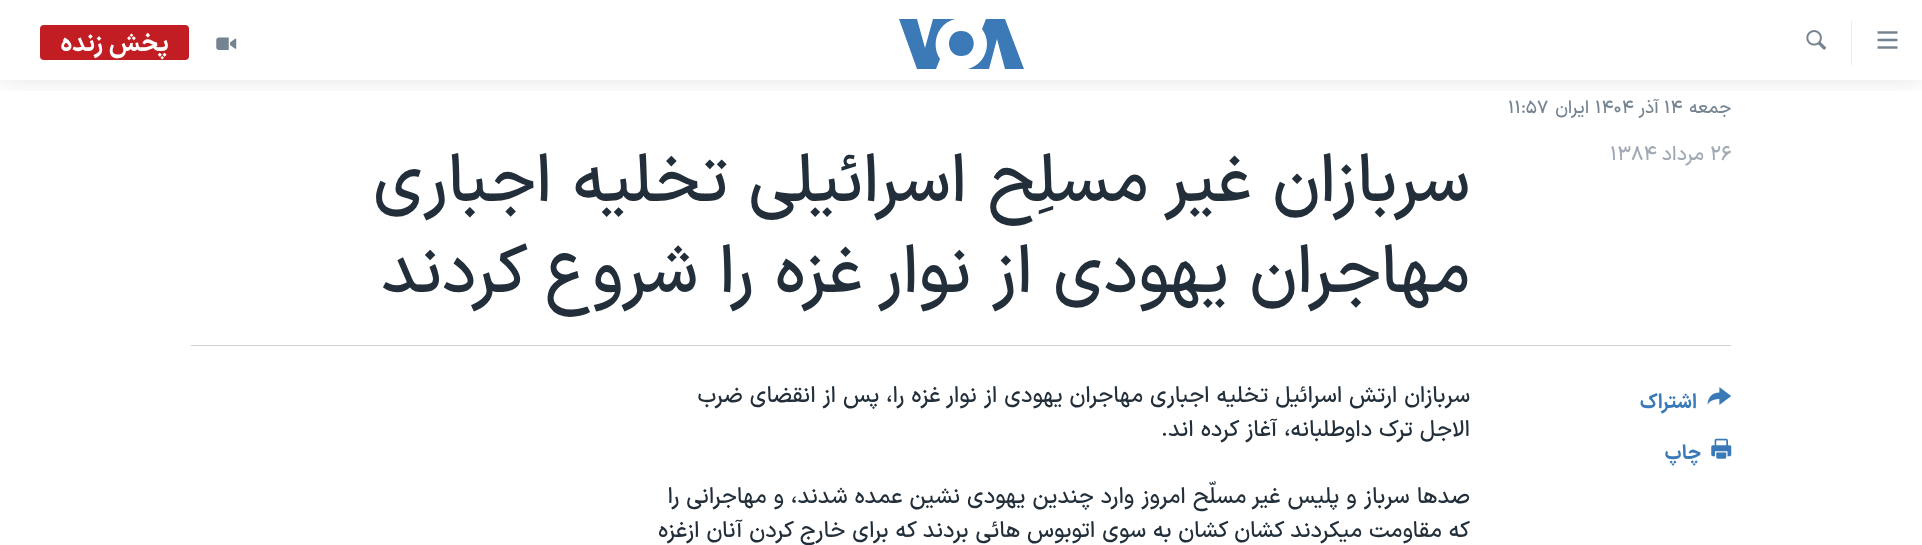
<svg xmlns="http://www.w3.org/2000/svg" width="1922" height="545">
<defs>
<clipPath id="clip1"><rect x="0" y="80" width="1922" height="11"/></clipPath>
</defs>
<rect width="100%" height="100%" fill="#fff"/>
<g clip-path="url(#clip1)">
<rect width="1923" height="80" fill="#0000001a" filter="blur(12.5px)"/>
</g>
<image x="1877" y="31" width="21" height="18" href="media/1.png"/>
<rect x="1851" y="21" width="1" height="44" fill="#ebebeb"/>
<image x="1806" y="30" width="21" height="20" href="media/2.png"/>
<path d="M940 59l-4 10h-19l-18-50h18l8 29l8-29h22c-17 4-25 25-15 40zm21-28c-16 0-16 25 0 25c17 0 17-25 0-25zm26 13c0 12-8 22-19 25h21l8-30l8 30h19l-19-50h-19l-4 10c3 4 5 9 5 15z" fill="#3b79b7"/>
<image x="216" y="37" width="21" height="13" href="media/3.png"/>
<rect x="40" y="25" width="149" height="35" rx="4" fill="#c11d22"/>
<text x="169" y="51" style="font-family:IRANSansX;font-size:25px;font-weight:bold;direction:rtl;fill:#fff">پخش زنده</text>
<text x="1731" y="113" style="font-family:IRANSansX;font-size:18px;font-weight:500;direction:rtl;fill:#768492">جمعه</text>
<text x="1664" y="113" style="font-family:IRANSansX;font-size:18px;font-weight:500;fill:#768492">۱۴</text>
<text x="1659" y="113" style="font-family:IRANSansX;font-size:18px;font-weight:500;direction:rtl;fill:#768492">آذر</text>
<text x="1595" y="113" style="font-family:IRANSansX;font-size:18px;font-weight:500;fill:#768492">۱۴۰۴</text>
<text x="1589" y="113" style="font-family:IRANSansX;font-size:18px;font-weight:500;direction:rtl;fill:#768492">ایران</text>
<text x="1508" y="113" style="font-family:IRANSansX;font-size:18px;font-weight:500;fill:#768492">۱۱:۵۷</text>
<text x="1710" y="160" style="font-family:IRANSansX;font-size:20px;font-weight:500;fill:#a1aab4">۲۶</text>
<text x="1704" y="160" style="font-family:IRANSansX;font-size:20px;font-weight:500;direction:rtl;fill:#a1aab4">مرداد</text>
<text x="1610" y="160" style="font-family:IRANSansX;font-size:20px;font-weight:500;fill:#a1aab4">۱۳۸۴</text>
<text x="1470" y="201" style="font-family:IRANSansX;font-size:67.5px;font-weight:500;direction:rtl;fill:#222f3a">سربازان غير مسلِح اسرائيلی تخليه اجباری</text>
<text x="1470" y="292" style="font-family:IRANSansX;font-size:67.5px;font-weight:500;direction:rtl;fill:#222f3a">مهاجران يهودی از نوار غزه را شروع کردند</text>
<rect x="191" y="345" width="1540" height="1" fill="#cbd1d6"/>
<image x="1707" y="387" width="25" height="18" href="media/4.png"/>
<text x="1697" y="408" style="font-family:IRANSansX;font-size:20px;font-weight:bold;direction:rtl;fill:#3a79b7">اشتراک</text>
<image x="1711" y="438" width="21" height="21" href="media/5.png"/>
<text x="1701" y="459" style="font-family:IRANSansX;font-size:20px;font-weight:bold;direction:rtl;fill:#3a79b7">چاپ</text>
<text x="1470" y="402" style="font-family:IRANSansX;font-size:22.5px;font-weight:500;direction:rtl;fill:#222f3a">سربازان ارتش اسرائيل تخليه اجباری مهاجران يهودی از نوار غزه را، پس از انقضای ضرب</text>
<text x="1470" y="436" style="font-family:IRANSansX;font-size:22.5px;font-weight:500;direction:rtl;fill:#222f3a">الاجل ترک داوطلبانه، آغاز کرده اند.</text>
<text x="1470" y="503" style="font-family:IRANSansX;font-size:22.5px;font-weight:500;direction:rtl;fill:#222f3a">صدها سرباز و پليس غير مسلّح امروز وارد چندين يهودی نشين عمده شدند، و مهاجرانی را</text>
<text x="1470" y="537" style="font-family:IRANSansX;font-size:22.5px;font-weight:500;direction:rtl;fill:#222f3a">که مقاومت ميکردند کشان کشان به سوی اتوبوس هائی بردند که برای خارج کردن آنان ازغزه</text>
</svg>
